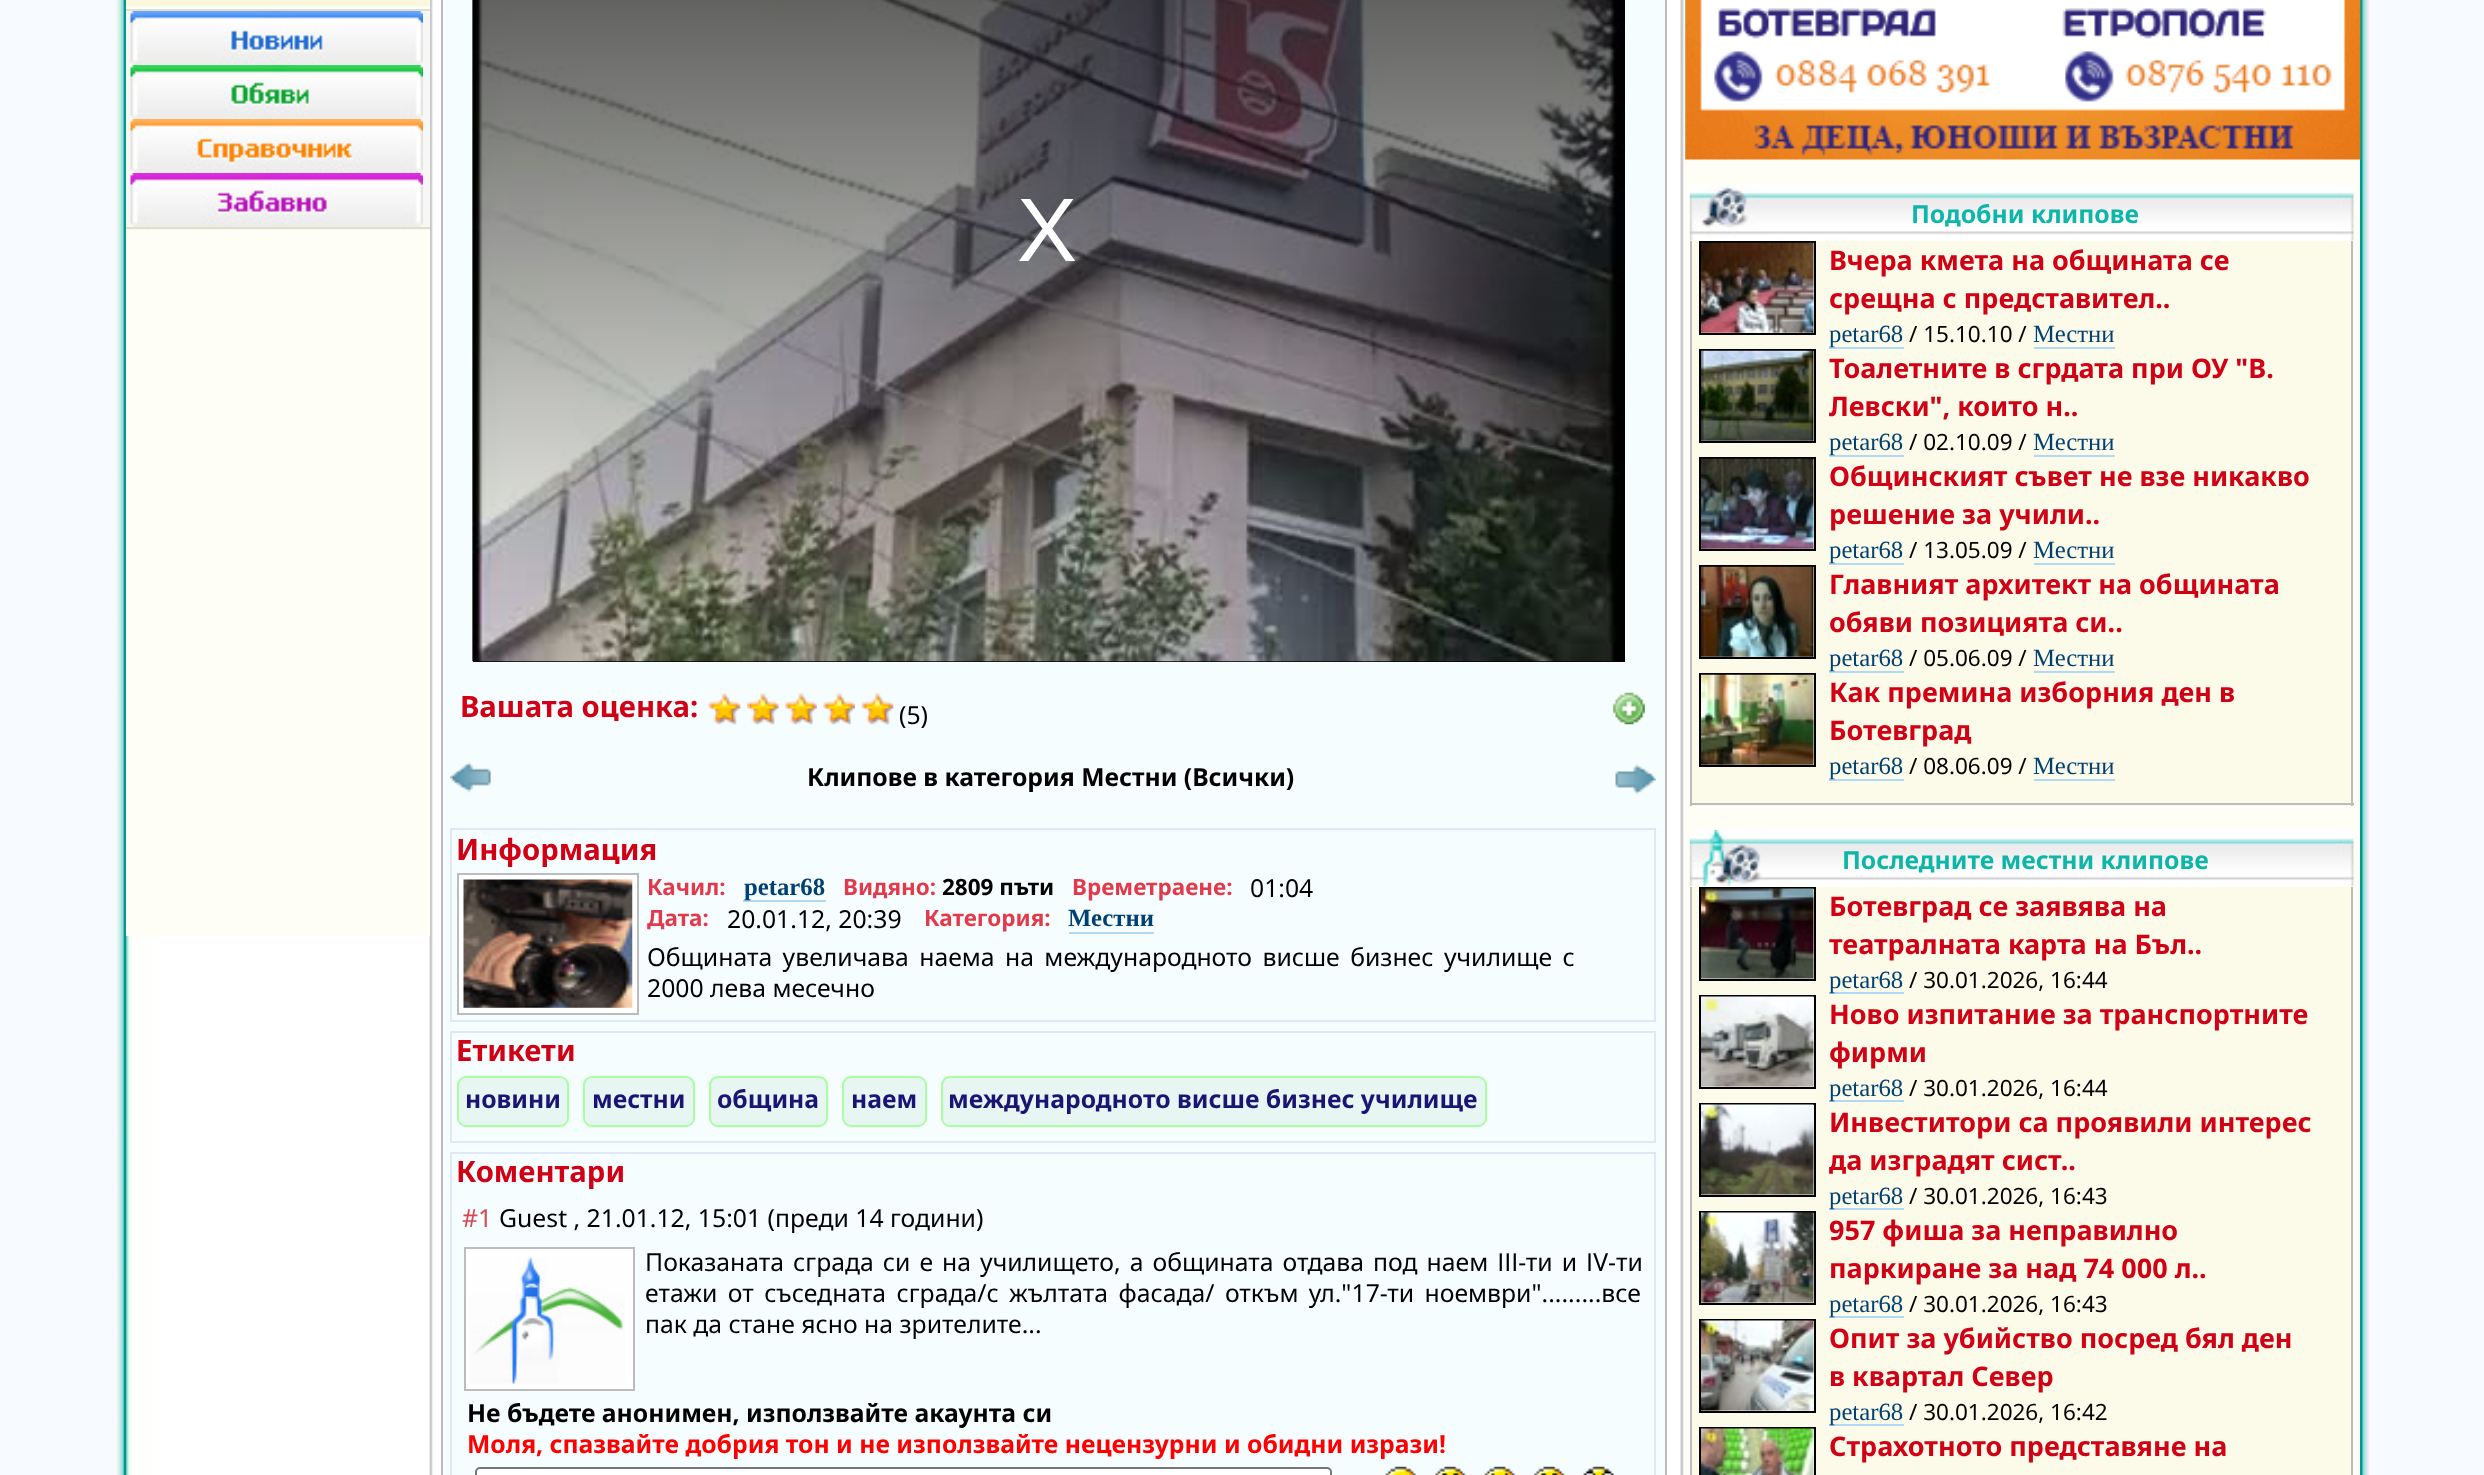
<svg xmlns="http://www.w3.org/2000/svg" width="2484" height="1475">
<defs>
<linearGradient id="g1" gradientUnits="userSpaceOnUse" x1="1049" y1="-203" x2="1049" y2="662"><stop offset="0" stop-color="#000" stop-opacity="0.8"/><stop offset="1" stop-color="#000" stop-opacity="0"/></linearGradient>
</defs>
<rect width="100%" height="100%" fill="#f7fbff"/>
<image x="116" y="0" width="2256" height="1475" href="media/1.png"/>
<rect x="2360" width="2" height="1475" fill="#07968a"/>
<rect x="124" width="2" height="1475" fill="#07968a"/>
<image x="429" y="0" width="1255" height="1475" href="media/2.png"/>
<rect x="126" width="304" height="936" fill="#fffef6"/>
<image x="126" y="0" width="304" height="9" href="media/3.png"/>
<rect x="126" y="9" width="304" height="2" fill="#e3dfc2"/>
<rect x="126" y="11" width="304" height="219" fill="#f7f7f7"/>
<rect x="126" y="227" width="304" height="2" fill="#e3dfc2"/>
<image x="130" y="11" width="293" height="54" href="media/4.png"/>
<image x="130" y="65" width="293" height="54" href="media/5.png"/>
<image x="130" y="119" width="293" height="54" href="media/6.png"/>
<image x="130" y="173" width="293" height="54" href="media/7.png"/>
<rect x="443" width="1222" height="1475" fill="#f6fdff"/>
<rect x="1665" width="2" height="1475" fill="#bcbcbc"/>
<rect x="441" width="2" height="1475" fill="#bcbcbc"/>
<image x="472" y="0" width="1" height="661" href="media/8.png"/>
<rect x="473" width="1152" height="662" fill="#000"/>
<image x="472" y="0" width="1153" height="662" href="media/9.png"/>
<rect x="473" width="1151" height="639" fill="url(#g1)"/>
<text x="1017" y="261" style="font-family:Liberation Sans;font-size:90px;fill:#fff">X</text>
<text x="460" y="717" style="font-family:Noto Sans;font-size:29.25px;font-weight:bold;fill:#d10014">Вашата оценка:</text>
<image x="708" y="692" width="33" height="33" href="media/10.png"/>
<image x="747" y="692" width="32" height="33" href="media/11.png"/>
<image x="785" y="692" width="32" height="33" href="media/12.png"/>
<image x="823" y="692" width="32" height="33" href="media/13.png"/>
<image x="861" y="692" width="33" height="33" href="media/10.png"/>
<text x="899" y="724" style="font-family:Noto Sans;font-size:24.75px;fill:#000">(5)</text>
<image x="1613" y="692" width="32" height="33" href="media/14.png"/>
<image x="450" y="762" width="42" height="31" href="media/15.png"/>
<text x="807" y="786" style="font-family:Noto Sans;font-size:24.75px;font-weight:bold;fill:#000">Клипове в категория Местни (Всички)</text>
<image x="1615" y="764" width="41" height="31" href="media/16.png"/>
<rect x="451" y="829" width="1204" height="192" fill="none" stroke="#e0e8f5" stroke-width="2"/>
<text x="456" y="860" style="font-family:Noto Sans;font-size:29.25px;font-weight:bold;fill:#d10014">Информация</text>
<rect x="458" y="874" width="180" height="140" fill="#fff" stroke="#bcbcbc" stroke-width="2"/>
<image x="463" y="879" width="170" height="129" href="media/17.png"/>
<text x="647" y="895" style="font-family:Noto Sans;font-size:22.5px;font-weight:bold;fill:#e23a4b">Качил:</text>
<rect x="743" y="900" width="83" height="2" fill="#b0d9f8"/>
<text x="744" y="895" style="font-family:Liberation Serif;font-size:24.75px;font-weight:bold;fill:#014172">petar68</text>
<text x="843" y="895" style="font-family:Noto Sans;font-size:22.5px;font-weight:bold;fill:#e23a4b">Видяно:</text>
<text x="942" y="895" style="font-family:Noto Sans;font-size:22.5px;font-weight:bold;fill:#000">2809 пъти</text>
<text x="1072" y="895" style="font-family:Noto Sans;font-size:22.5px;font-weight:bold;fill:#e23a4b">Времетраене:</text>
<text x="1250" y="897" style="font-family:Noto Sans;font-size:24.75px;fill:#000">01:04</text>
<text x="647" y="926" style="font-family:Noto Sans;font-size:22.5px;font-weight:bold;fill:#e23a4b">Дата:</text>
<text x="727" y="928" style="font-family:Noto Sans;font-size:24.75px;fill:#000">20.01.12, 20:39</text>
<text x="924" y="926" style="font-family:Noto Sans;font-size:22.5px;font-weight:bold;fill:#e23a4b">Категория:</text>
<text x="1068" y="926" style="font-family:Liberation Serif;font-size:24.75px;font-weight:bold;fill:#014172">Местни</text>
<rect x="1069" y="932" width="85" height="2" fill="#b0d9f8"/>
<text x="647" y="966" word-spacing="4" style="font-family:Noto Sans;font-size:24.75px;fill:#000">Общината увеличава наема на международното висше бизнес училище с</text>
<text x="647" y="997" style="font-family:Noto Sans;font-size:24.75px;fill:#000">2000 лева месечно</text>
<rect x="451" y="1032" width="1204" height="110" fill="none" stroke="#e0e8f5" stroke-width="2"/>
<text x="456" y="1061" style="font-family:Noto Sans;font-size:29.25px;font-weight:bold;fill:#d10014">Етикети</text>
<rect x="458" y="1077" width="110" height="49" rx="8" fill="#e7f5f3" stroke="#a7ff9e" stroke-width="2"/>
<text x="465" y="1108" style="font-family:Noto Sans;font-size:24.75px;font-weight:bold;fill:#1a1475">новини</text>
<rect x="584" y="1077" width="110" height="49" rx="8" fill="#e7f5f3" stroke="#a7ff9e" stroke-width="2"/>
<text x="592" y="1108" style="font-family:Noto Sans;font-size:24.75px;font-weight:bold;fill:#1a1475">местни</text>
<rect x="710" y="1077" width="117" height="49" rx="8" fill="#e7f5f3" stroke="#a7ff9e" stroke-width="2"/>
<text x="717" y="1108" style="font-family:Noto Sans;font-size:24.75px;font-weight:bold;fill:#1a1475">община</text>
<rect x="843" y="1077" width="83" height="49" rx="8" fill="#e7f5f3" stroke="#a7ff9e" stroke-width="2"/>
<text x="851" y="1108" style="font-family:Noto Sans;font-size:24.75px;font-weight:bold;fill:#1a1475">наем</text>
<rect x="942" y="1077" width="544" height="49" rx="8" fill="#e7f5f3" stroke="#a7ff9e" stroke-width="2"/>
<text x="948" y="1108" style="font-family:Noto Sans;font-size:24.75px;font-weight:bold;fill:#1a1475">международното висше бизнес училище</text>
<rect x="451" y="1153" width="1204" height="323" fill="none" stroke="#e0e8f5" stroke-width="2"/>
<text x="456" y="1182" style="font-family:Noto Sans;font-size:29.25px;font-weight:bold;fill:#d10014">Коментари</text>
<text x="462" y="1227" style="font-family:Noto Sans;font-size:24.75px;fill:#d94755">#1</text>
<text x="499" y="1227" style="font-family:Noto Sans;font-size:24.75px;fill:#000">Guest , 21.01.12, 15:01 (преди 14 години)</text>
<rect x="465" y="1248" width="169" height="142" fill="#fff" stroke="#bcbcbc" stroke-width="2"/>
<image x="470" y="1256" width="155" height="128" href="media/18.png"/>
<text x="645" y="1271" word-spacing="2.6" style="font-family:Noto Sans;font-size:24.75px;fill:#000">Показаната сграда си е на училището, а общината отдава под наем ІІІ-ти и ІV-ти</text>
<text x="645" y="1302" word-spacing="4" style="font-family:Noto Sans;font-size:24.75px;fill:#000">етажи от съседната сграда/с жълтата фасада/ откъм ул."17-ти ноември".........все</text>
<text x="645" y="1333" style="font-family:Noto Sans;font-size:24.75px;fill:#000">пак да стане ясно на зрителите...</text>
<text x="467" y="1422" style="font-family:Noto Sans;font-size:24.75px;font-weight:bold;fill:#000">Не бъдете анонимен, използвайте акаунта си</text>
<text x="467" y="1453" style="font-family:Noto Sans;font-size:24.75px;font-weight:bold;fill:#f00">Моля, спазвайте добрия тон и не използвайте нецензурни и обидни изрази!</text>
<rect x="476" y="1468" width="855" height="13" rx="4" fill="#fff" stroke="#767676" stroke-width="2"/>
<image x="1385" y="1466" width="31" height="9" href="media/19.png"/>
<image x="1435" y="1466" width="31" height="9" href="media/20.png"/>
<image x="1484" y="1466" width="31" height="9" href="media/21.png"/>
<image x="1534" y="1466" width="31" height="9" href="media/20.png"/>
<image x="1583" y="1466" width="31" height="9" href="media/22.png"/>
<rect x="1685" width="675" height="1475" fill="#fffef6"/>
<image x="1685" y="0" width="676" height="160" href="media/23.png"/>
<image x="1689" y="184" width="665" height="57" href="media/24.png"/>
<text x="1911" y="223" style="font-family:Noto Sans;font-size:24.75px;font-weight:bold;fill:#0eb6a9">Подобни клипове</text>
<rect x="1692" y="241" width="662" height="565" fill="#fcfae9"/>
<rect x="2351" y="241" width="2" height="565" fill="#bcbcbc"/>
<rect x="1690" y="803" width="664" height="2" fill="#bcbcbc"/>
<rect x="1690" y="241" width="2" height="565" fill="#bcbcbc"/>
<rect x="1700" y="242" width="115" height="92" fill="none" stroke="#000" stroke-width="2"/>
<image x="1701" y="242" width="113" height="91" href="media/25.png"/>
<text x="1829" y="270" style="font-family:Noto Sans;font-size:27px;font-weight:bold;fill:#d10014">Вчера кмета на общината се</text>
<text x="1829" y="308" style="font-family:Noto Sans;font-size:27px;font-weight:bold;fill:#d10014">срещна с представител..</text>
<rect x="1829" y="347" width="75" height="2" fill="#b0d9f8"/>
<text x="1829" y="342" style="font-family:Liberation Serif;font-size:24.75px;fill:#014172">petar68</text>
<text x="1909" y="342" style="font-family:Noto Sans;font-size:22.5px;fill:#000">/ 15.10.10 /</text>
<text x="2033" y="342" style="font-family:Liberation Serif;font-size:24.75px;fill:#014172">Местни</text>
<rect x="2034" y="347" width="81" height="2" fill="#b0d9f8"/>
<rect x="1700" y="350" width="115" height="92" fill="none" stroke="#000" stroke-width="2"/>
<image x="1701" y="350" width="113" height="91" href="media/26.png"/>
<text x="1829" y="378" style="font-family:Noto Sans;font-size:27px;font-weight:bold;fill:#d10014">Тоалетните в сгрдата при ОУ "В.</text>
<text x="1829" y="416" style="font-family:Noto Sans;font-size:27px;font-weight:bold;fill:#d10014">Левски", които н..</text>
<rect x="1829" y="455" width="75" height="2" fill="#b0d9f8"/>
<text x="1829" y="450" style="font-family:Liberation Serif;font-size:24.75px;fill:#014172">petar68</text>
<text x="1909" y="450" style="font-family:Noto Sans;font-size:22.5px;fill:#000">/ 02.10.09 /</text>
<text x="2033" y="450" style="font-family:Liberation Serif;font-size:24.75px;fill:#014172">Местни</text>
<rect x="2034" y="455" width="81" height="2" fill="#b0d9f8"/>
<rect x="1700" y="458" width="115" height="92" fill="none" stroke="#000" stroke-width="2"/>
<image x="1701" y="458" width="113" height="91" href="media/27.png"/>
<text x="1829" y="486" style="font-family:Noto Sans;font-size:27px;font-weight:bold;fill:#d10014">Общинският съвет не взе никакво</text>
<text x="1829" y="524" style="font-family:Noto Sans;font-size:27px;font-weight:bold;fill:#d10014">решение за учили..</text>
<rect x="1829" y="563" width="75" height="2" fill="#b0d9f8"/>
<text x="1829" y="558" style="font-family:Liberation Serif;font-size:24.75px;fill:#014172">petar68</text>
<text x="1909" y="558" style="font-family:Noto Sans;font-size:22.5px;fill:#000">/ 13.05.09 /</text>
<text x="2033" y="558" style="font-family:Liberation Serif;font-size:24.75px;fill:#014172">Местни</text>
<rect x="2034" y="563" width="81" height="2" fill="#b0d9f8"/>
<rect x="1700" y="566" width="115" height="92" fill="none" stroke="#000" stroke-width="2"/>
<image x="1701" y="566" width="113" height="91" href="media/28.png"/>
<text x="1829" y="594" style="font-family:Noto Sans;font-size:27px;font-weight:bold;fill:#d10014">Главният архитект на общината</text>
<text x="1829" y="632" style="font-family:Noto Sans;font-size:27px;font-weight:bold;fill:#d10014">обяви позицията си..</text>
<rect x="1829" y="671" width="75" height="2" fill="#b0d9f8"/>
<text x="1829" y="666" style="font-family:Liberation Serif;font-size:24.75px;fill:#014172">petar68</text>
<text x="1909" y="666" style="font-family:Noto Sans;font-size:22.5px;fill:#000">/ 05.06.09 /</text>
<text x="2033" y="666" style="font-family:Liberation Serif;font-size:24.75px;fill:#014172">Местни</text>
<rect x="2034" y="671" width="81" height="2" fill="#b0d9f8"/>
<rect x="1700" y="674" width="115" height="92" fill="none" stroke="#000" stroke-width="2"/>
<image x="1701" y="674" width="113" height="91" href="media/29.png"/>
<text x="1829" y="702" style="font-family:Noto Sans;font-size:27px;font-weight:bold;fill:#d10014">Как премина изборния ден в</text>
<text x="1829" y="740" style="font-family:Noto Sans;font-size:27px;font-weight:bold;fill:#d10014">Ботевград</text>
<rect x="1829" y="779" width="75" height="2" fill="#b0d9f8"/>
<text x="1829" y="774" style="font-family:Liberation Serif;font-size:24.75px;fill:#014172">petar68</text>
<text x="1909" y="774" style="font-family:Noto Sans;font-size:22.5px;fill:#000">/ 08.06.09 /</text>
<text x="2033" y="774" style="font-family:Liberation Serif;font-size:24.75px;fill:#014172">Местни</text>
<rect x="2034" y="779" width="81" height="2" fill="#b0d9f8"/>
<image x="1689" y="830" width="665" height="57" href="media/30.png"/>
<text x="1842" y="869" style="font-family:Noto Sans;font-size:24.75px;font-weight:bold;fill:#0eb6a9">Последните местни клипове</text>
<rect x="1692" y="887" width="662" height="588" fill="#fcfae9"/>
<rect x="2351" y="887" width="2" height="588" fill="#bcbcbc"/>
<rect x="1690" y="887" width="2" height="588" fill="#bcbcbc"/>
<rect x="1700" y="888" width="115" height="92" fill="none" stroke="#000" stroke-width="2"/>
<image x="1701" y="888" width="113" height="91" href="media/31.png"/>
<text x="1829" y="916" style="font-family:Noto Sans;font-size:27px;font-weight:bold;fill:#d10014">Ботевград се заявява на</text>
<text x="1829" y="954" style="font-family:Noto Sans;font-size:27px;font-weight:bold;fill:#d10014">театралната карта на Бъл..</text>
<rect x="1829" y="992" width="75" height="2" fill="#b0d9f8"/>
<text x="1829" y="988" style="font-family:Liberation Serif;font-size:24.75px;fill:#014172">petar68</text>
<text x="1909" y="988" style="font-family:Noto Sans;font-size:22.5px;fill:#000">/ 30.01.2026, 16:44</text>
<rect x="1700" y="996" width="115" height="92" fill="none" stroke="#000" stroke-width="2"/>
<image x="1701" y="996" width="113" height="91" href="media/32.png"/>
<text x="1829" y="1024" style="font-family:Noto Sans;font-size:27px;font-weight:bold;fill:#d10014">Ново изпитание за транспортните</text>
<text x="1829" y="1062" style="font-family:Noto Sans;font-size:27px;font-weight:bold;fill:#d10014">фирми</text>
<rect x="1829" y="1100" width="75" height="2" fill="#b0d9f8"/>
<text x="1829" y="1096" style="font-family:Liberation Serif;font-size:24.75px;fill:#014172">petar68</text>
<text x="1909" y="1096" style="font-family:Noto Sans;font-size:22.5px;fill:#000">/ 30.01.2026, 16:44</text>
<rect x="1700" y="1104" width="115" height="92" fill="none" stroke="#000" stroke-width="2"/>
<image x="1701" y="1104" width="113" height="91" href="media/33.png"/>
<text x="1829" y="1132" style="font-family:Noto Sans;font-size:27px;font-weight:bold;fill:#d10014">Инвеститори са проявили интерес</text>
<text x="1829" y="1170" style="font-family:Noto Sans;font-size:27px;font-weight:bold;fill:#d10014">да изградят сист..</text>
<rect x="1829" y="1208" width="75" height="2" fill="#b0d9f8"/>
<text x="1829" y="1204" style="font-family:Liberation Serif;font-size:24.75px;fill:#014172">petar68</text>
<text x="1909" y="1204" style="font-family:Noto Sans;font-size:22.5px;fill:#000">/ 30.01.2026, 16:43</text>
<rect x="1700" y="1212" width="115" height="92" fill="none" stroke="#000" stroke-width="2"/>
<image x="1701" y="1212" width="113" height="91" href="media/34.png"/>
<text x="1829" y="1240" style="font-family:Noto Sans;font-size:27px;font-weight:bold;fill:#d10014">957 фиша за неправилно</text>
<text x="1829" y="1278" style="font-family:Noto Sans;font-size:27px;font-weight:bold;fill:#d10014">паркиране за над 74 000 л..</text>
<rect x="1829" y="1316" width="75" height="2" fill="#b0d9f8"/>
<text x="1829" y="1312" style="font-family:Liberation Serif;font-size:24.75px;fill:#014172">petar68</text>
<text x="1909" y="1312" style="font-family:Noto Sans;font-size:22.5px;fill:#000">/ 30.01.2026, 16:43</text>
<rect x="1700" y="1320" width="115" height="92" fill="none" stroke="#000" stroke-width="2"/>
<image x="1701" y="1320" width="113" height="91" href="media/35.png"/>
<text x="1829" y="1348" style="font-family:Noto Sans;font-size:27px;font-weight:bold;fill:#d10014">Опит за убийство посред бял ден</text>
<text x="1829" y="1386" style="font-family:Noto Sans;font-size:27px;font-weight:bold;fill:#d10014">в квартал Север</text>
<rect x="1829" y="1424" width="75" height="2" fill="#b0d9f8"/>
<text x="1829" y="1420" style="font-family:Liberation Serif;font-size:24.75px;fill:#014172">petar68</text>
<text x="1909" y="1420" style="font-family:Noto Sans;font-size:22.5px;fill:#000">/ 30.01.2026, 16:42</text>
<rect x="1700" y="1428" width="115" height="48" fill="none" stroke="#000" stroke-width="2"/>
<image x="1701" y="1428" width="113" height="47" href="media/36.png"/>
<text x="1829" y="1456" style="font-family:Noto Sans;font-size:27px;font-weight:bold;fill:#d10014">Страхотното представяне на</text>
</svg>
